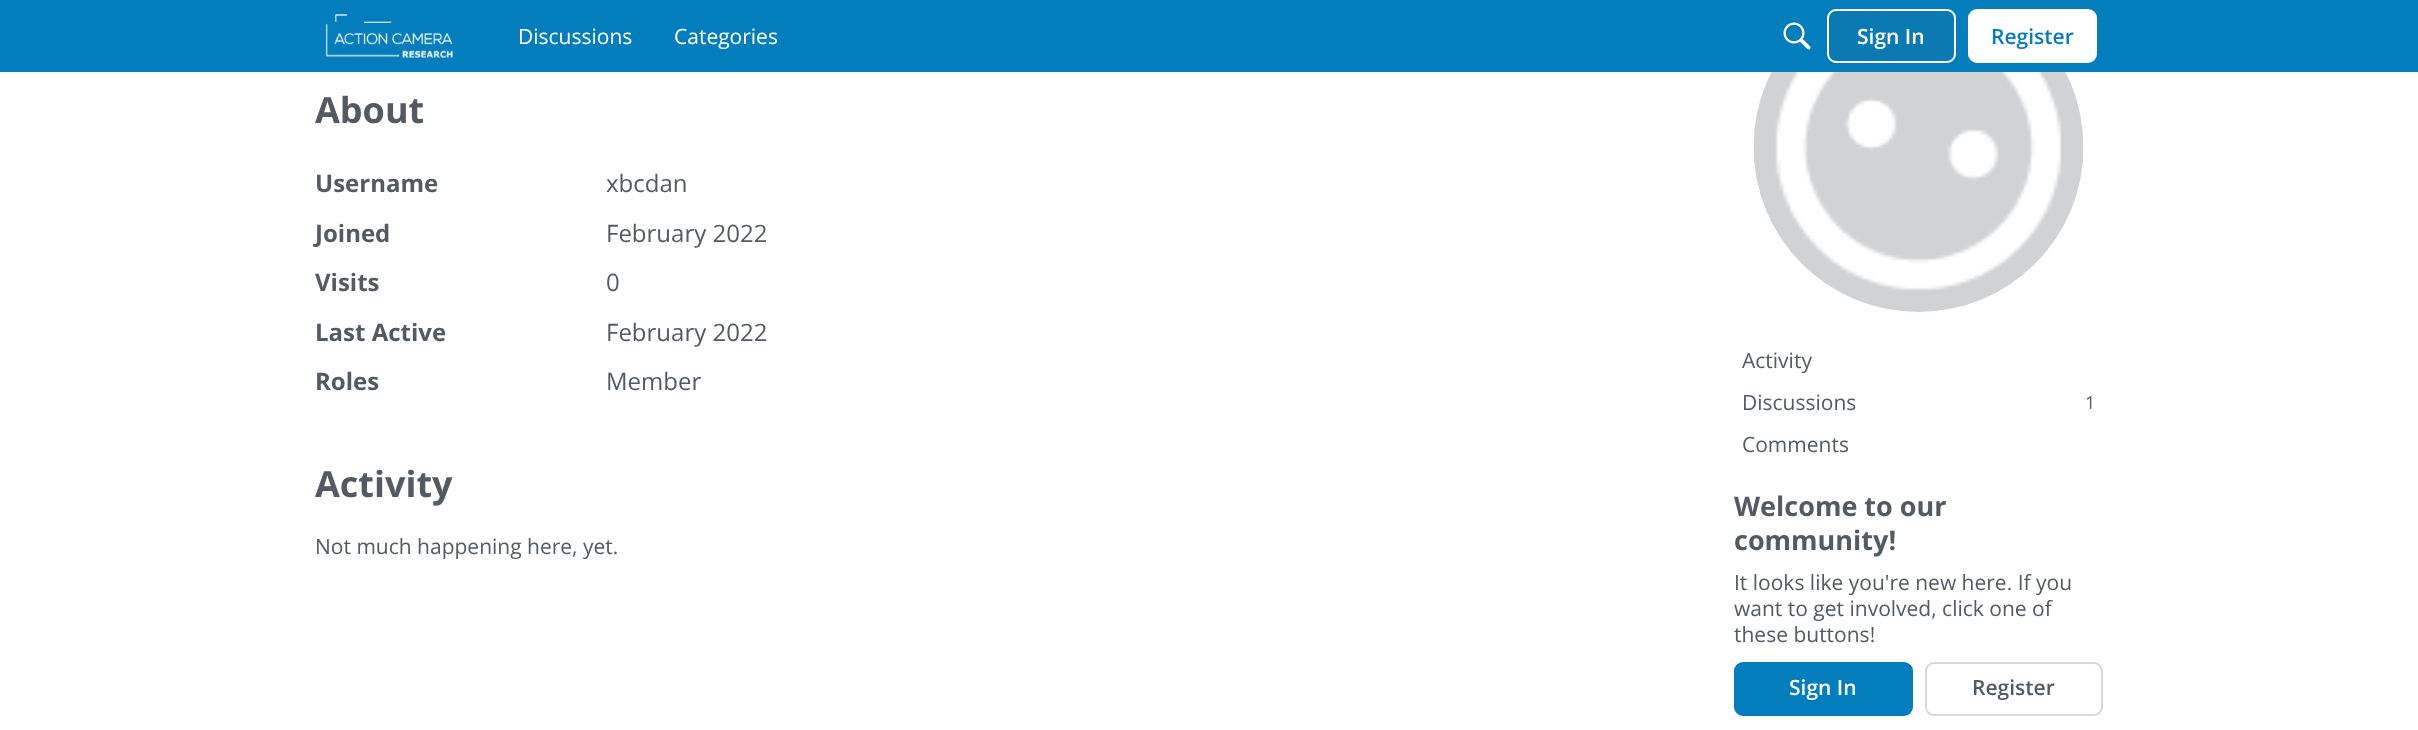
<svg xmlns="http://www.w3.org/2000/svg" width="2418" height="730">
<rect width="100%" height="100%" fill="#fff"/>
<rect width="2418" height="72" fill="#037dbc"/>
<image x="325" y="14" width="128" height="44" href="media/1.png"/>
<text x="518" y="44" style="font-family:Open Sans;font-size:21px;fill:#fff">Discussions</text>
<text x="674" y="44" style="font-family:Open Sans;font-size:21px;fill:#fff">Categories</text>
<image x="1783" y="22" width="28" height="28" href="media/2.png"/>
<rect x="1828" y="10" width="127" height="52" rx="8" fill="#0b7ab3" stroke="#fff" stroke-width="2"/>
<text x="1857" y="44" style="font-family:Open Sans;font-size:21px;font-weight:600;fill:#fff">Sign In</text>
<rect x="1969" y="10" width="127" height="52" rx="8" fill="#fff" stroke="#fff" stroke-width="2"/>
<text x="1991" y="44" style="font-family:Open Sans;font-size:21px;font-weight:600;fill:#037dbc">Register</text>
<text x="315" y="123" style="font-family:Open Sans;font-size:36px;font-weight:bold;fill:#555a62">About</text>
<text x="315" y="192" style="font-family:Open Sans;font-size:24px;font-weight:bold;fill:#555a62">Username</text>
<text x="606" y="192" style="font-family:Open Sans;font-size:24px;fill:#555a62">xbcdan</text>
<text x="315" y="242" style="font-family:Open Sans;font-size:24px;font-weight:bold;fill:#555a62">Joined</text>
<text x="606" y="242" style="font-family:Open Sans;font-size:24px;fill:#555a62">February 2022</text>
<text x="315" y="291" style="font-family:Open Sans;font-size:24px;font-weight:bold;fill:#555a62">Visits</text>
<text x="606" y="291" style="font-family:Open Sans;font-size:24px;fill:#555a62">0</text>
<text x="315" y="341" style="font-family:Open Sans;font-size:24px;font-weight:bold;fill:#555a62">Last Active</text>
<text x="606" y="341" style="font-family:Open Sans;font-size:24px;fill:#555a62">February 2022</text>
<text x="315" y="390" style="font-family:Open Sans;font-size:24px;font-weight:bold;fill:#555a62">Roles</text>
<text x="606" y="390" style="font-family:Open Sans;font-size:24px;fill:#555a62">Member</text>
<text x="315" y="497" style="font-family:Open Sans;font-size:36px;font-weight:bold;fill:#555a62">Activity</text>
<text x="315" y="554" style="font-family:Open Sans;font-size:21px;fill:#555a62">Not much happening here, yet.</text>
<image x="1753" y="72" width="331" height="240" href="media/3.png"/>
<text x="1742" y="368" style="font-family:Open Sans;font-size:21px;fill:#555a62">Activity</text>
<text x="1742" y="410" style="font-family:Open Sans;font-size:21px;fill:#555a62">Discussions</text>
<text x="2085" y="409" style="font-family:Open Sans;font-size:18px;fill:#555a62">1</text>
<text x="1742" y="452" style="font-family:Open Sans;font-size:21px;fill:#555a62">Comments</text>
<text x="1734" y="516" style="font-family:Open Sans;font-size:27px;font-weight:bold;fill:#555a62">Welcome to our</text>
<text x="1734" y="550" style="font-family:Open Sans;font-size:27px;font-weight:bold;fill:#555a62">community!</text>
<text x="1734" y="590" style="font-family:Open Sans;font-size:21px;fill:#555a62">It looks like you're new here. If you</text>
<text x="1734" y="616" style="font-family:Open Sans;font-size:21px;fill:#555a62">want to get involved, click one of</text>
<text x="1734" y="642" style="font-family:Open Sans;font-size:21px;fill:#555a62">these buttons!</text>
<rect x="1735" y="663" width="177" height="52" rx="8" fill="#037dbc" stroke="#037dbc" stroke-width="2"/>
<text x="1789" y="695" style="font-family:Open Sans;font-size:21px;font-weight:600;fill:#fff">Sign In</text>
<rect x="1926" y="663" width="176" height="52" rx="8" fill="none" stroke="#d6d7d9" stroke-width="2"/>
<text x="1972" y="695" style="font-family:Open Sans;font-size:21px;font-weight:600;fill:#555a62">Register</text>
</svg>
